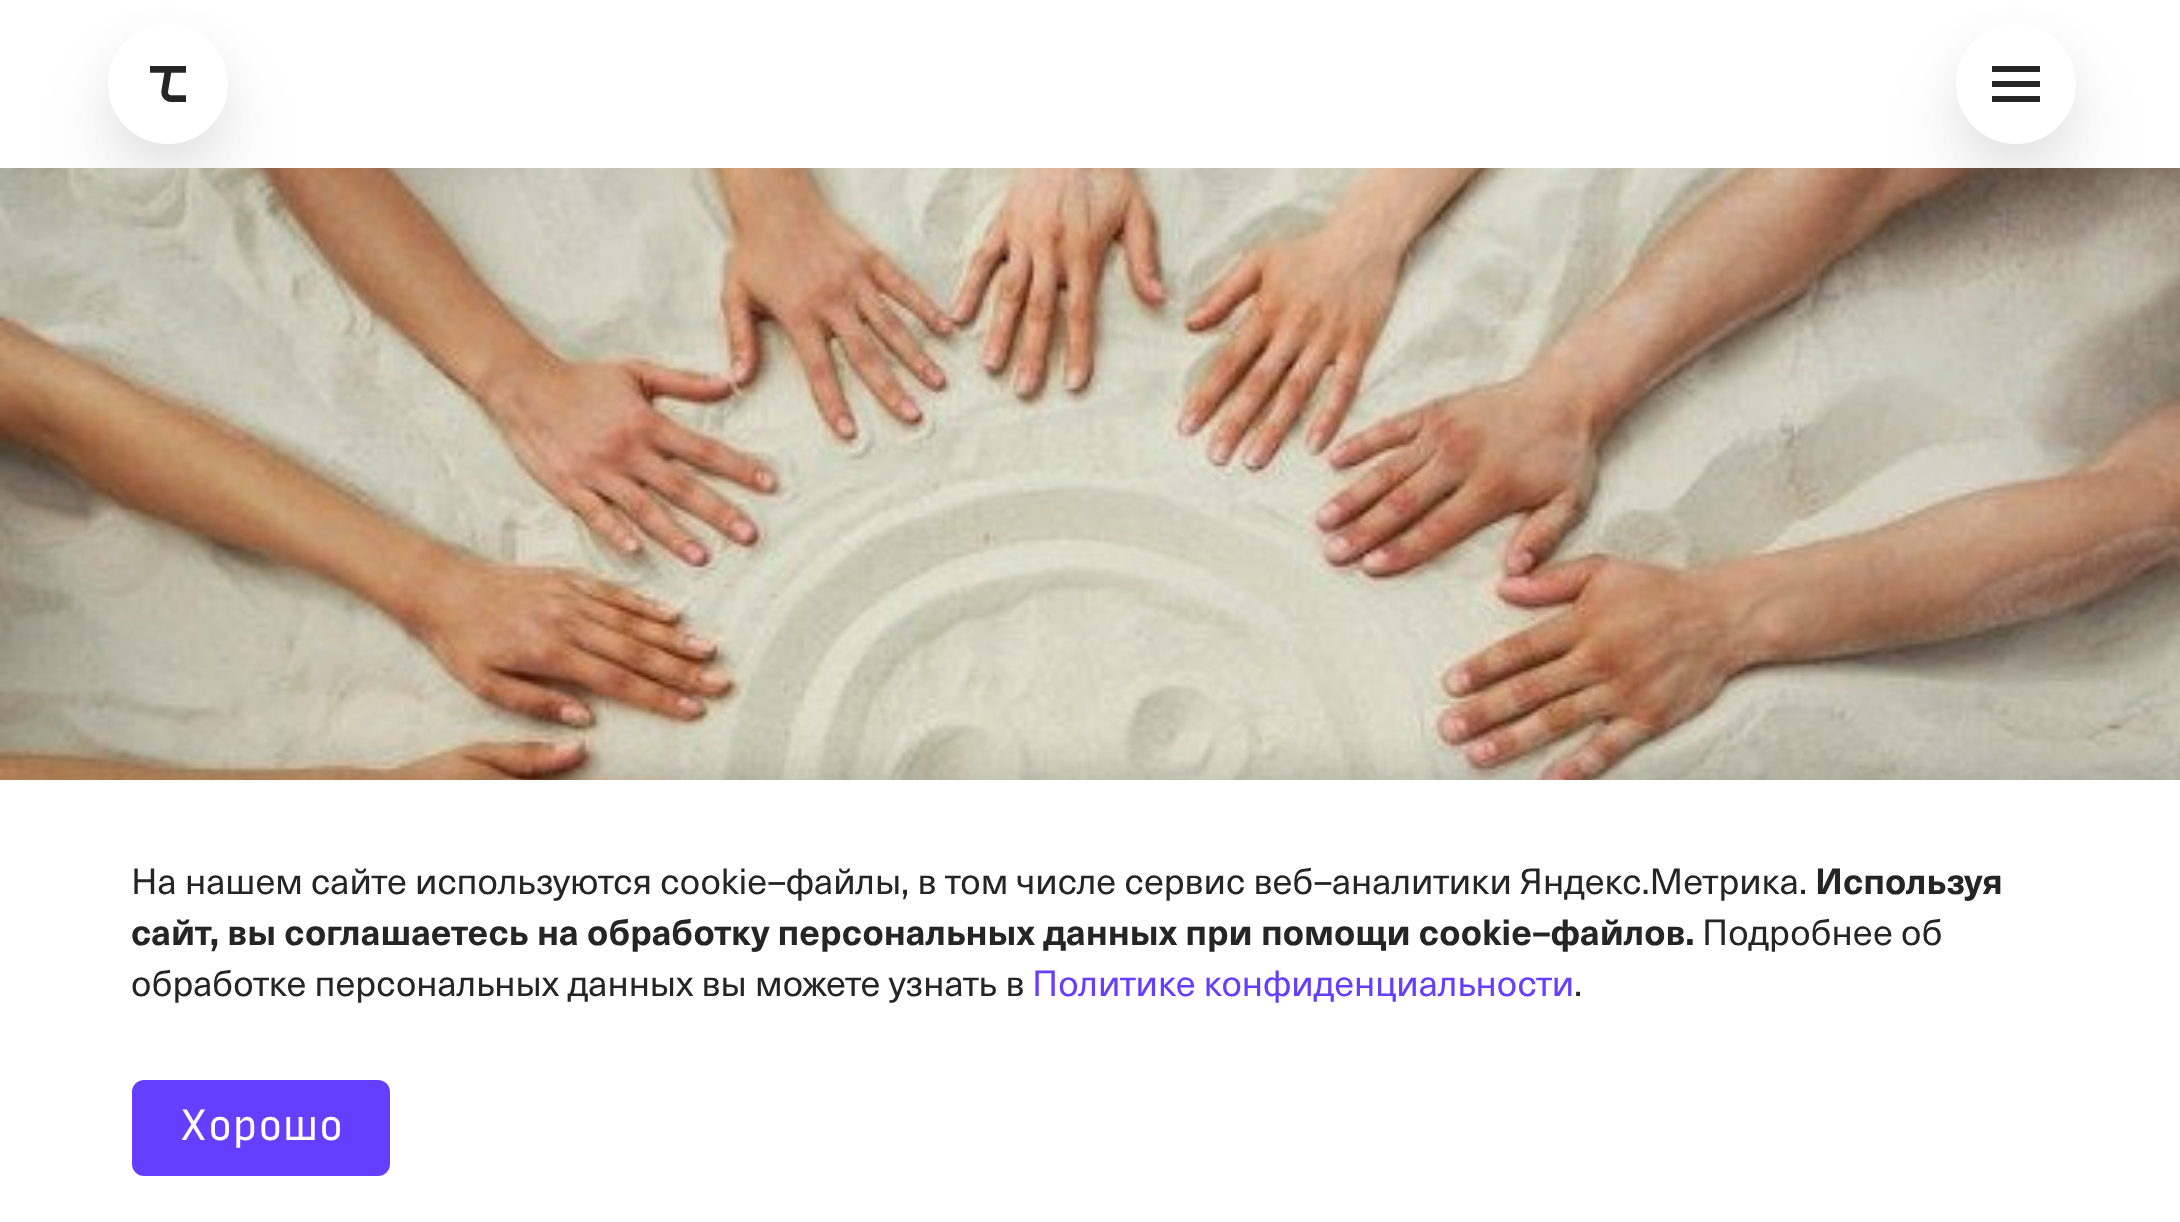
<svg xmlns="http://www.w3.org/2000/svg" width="2180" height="1222">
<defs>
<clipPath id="clip1"><path d="M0 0h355v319h-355zm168 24c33 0 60 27 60 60c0 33-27 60-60 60c-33 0-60-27-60-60c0-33 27-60 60-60z" clip-rule="evenodd"/></clipPath>
<clipPath id="clip2"><path d="M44 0h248v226h-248zm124 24c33 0 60 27 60 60c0 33-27 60-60 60c-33 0-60-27-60-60c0-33 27-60 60-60z" clip-rule="evenodd"/></clipPath>
<clipPath id="clip3"><path d="M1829 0h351v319h-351zm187 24c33 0 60 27 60 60c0 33-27 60-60 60c-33 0-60-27-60-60c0-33 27-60 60-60z" clip-rule="evenodd"/></clipPath>
<clipPath id="clip4"><path d="M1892 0h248v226h-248zm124 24c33 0 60 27 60 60c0 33-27 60-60 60c-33 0-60-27-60-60c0-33 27-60 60-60z" clip-rule="evenodd"/></clipPath>
</defs>
<rect width="100%" height="100%" fill="#fff"/>
<g clip-path="url(#clip1)">
<rect x="108" y="72" width="120" height="120" rx="60" fill="#00000012" filter="blur(42px)"/>
</g>
<g clip-path="url(#clip2)">
<rect x="108" y="42" width="120" height="120" rx="60" fill="#0000000f" filter="blur(21px)"/>
</g>
<image x="150" y="66" width="36" height="36" href="media/1.png"/>
<g clip-path="url(#clip3)">
<rect x="1956" y="72" width="120" height="120" rx="60" fill="#00000012" filter="blur(42px)"/>
</g>
<g clip-path="url(#clip4)">
<rect x="1956" y="42" width="120" height="120" rx="60" fill="#0000000f" filter="blur(21px)"/>
</g>
<path d="M1992 102v-6h48v6zm0-15v-6h48v6zm0-15v-6h48v6z" fill="#252525"/>
<image x="0" y="168" width="2180" height="612" href="media/2.png"/>
<rect y="780" width="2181" height="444" fill="#00000033" filter="blur(24px)"/>
<rect y="780" width="2180" height="442" fill="#fff"/>
<text x="131" y="894" style="font-family:'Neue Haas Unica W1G';font-size:36px;fill:#252525">На нашем сайте используются cookie–файлы, в том числе сервис веб–аналитики Яндекс.Метрика.</text>
<text x="1815" y="894" style="font-family:'Neue Haas Unica W1G';font-size:36px;font-weight:bold;fill:#252525">Используя</text>
<text x="131" y="945" style="font-family:'Neue Haas Unica W1G';font-size:36px;font-weight:bold;fill:#252525">сайт, вы соглашаетесь на обработку персональных данных при помощи cookie–файлов.</text>
<text x="1702" y="945" style="font-family:'Neue Haas Unica W1G';font-size:36px;fill:#252525">Подробнее об</text>
<text x="131" y="996" style="font-family:'Neue Haas Unica W1G';font-size:36px;fill:#252525">обработке персональных данных вы можете узнать в</text>
<text x="1032" y="996" style="font-family:'Neue Haas Unica W1G';font-size:36px;fill:#643fff">Политике конфиденциальности</text>
<text x="1574" y="996" style="font-family:'Neue Haas Unica W1G';font-size:36px;fill:#252525">.</text>
<rect x="132" y="1080" width="258" height="96" rx="12" fill="#643fff"/>
<text x="179" y="1140" style="font-family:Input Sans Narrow;font-size:42px;fill:#fff">Хорошо</text>
</svg>
